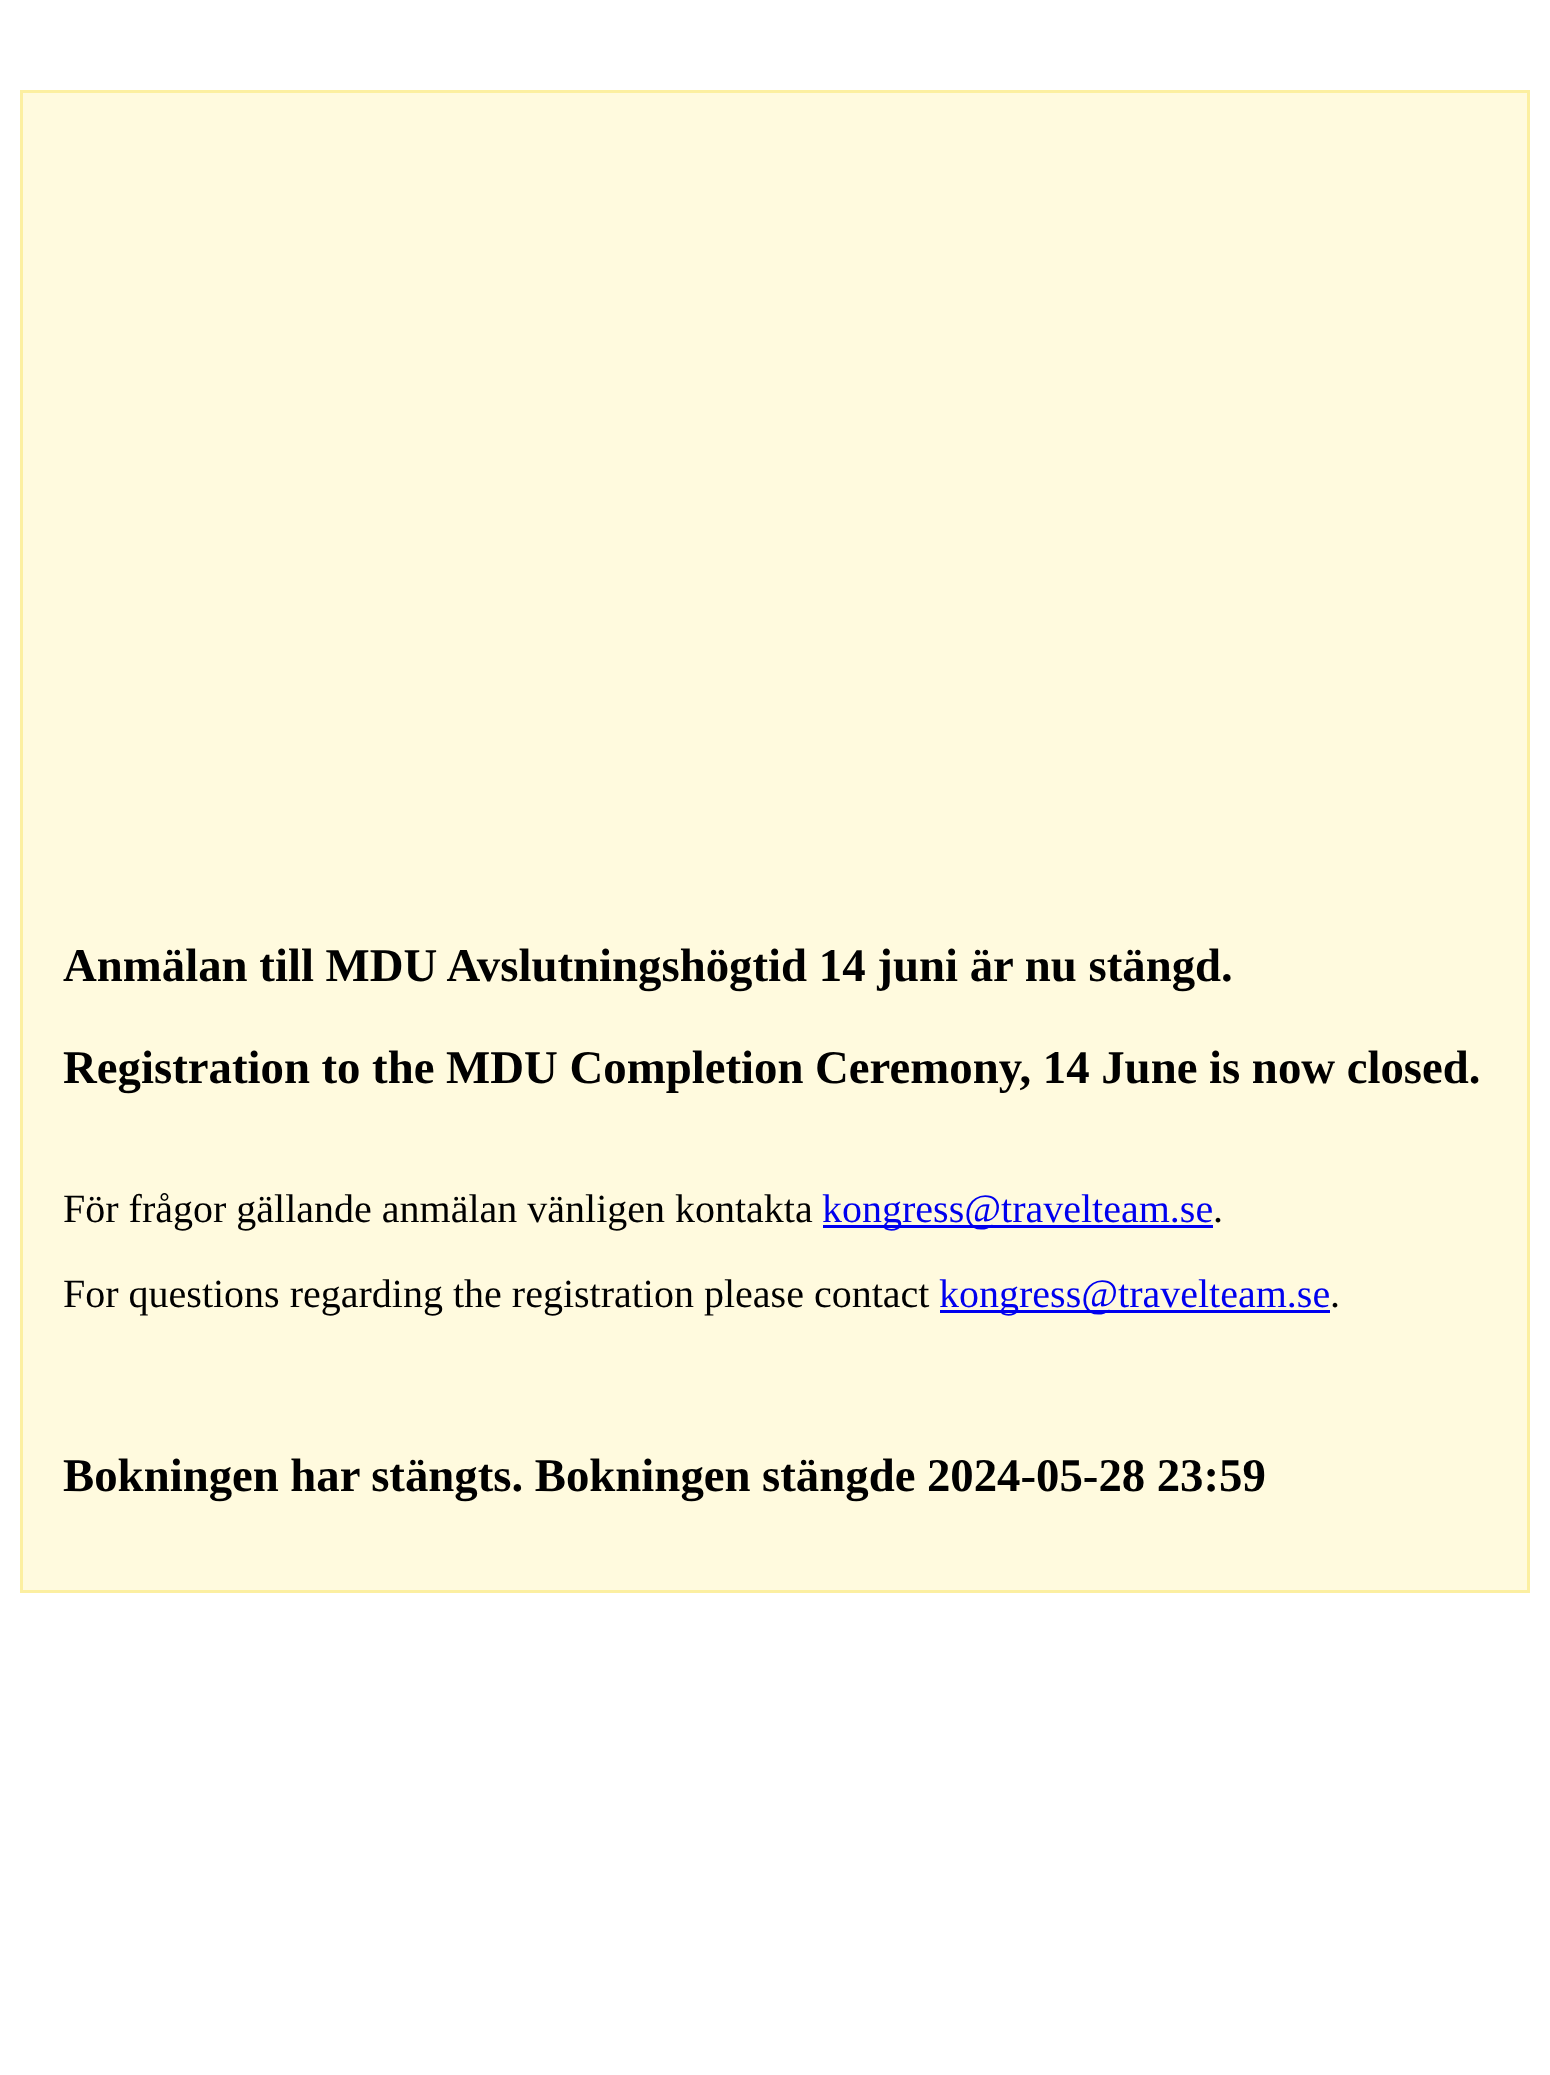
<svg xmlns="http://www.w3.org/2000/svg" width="1550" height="2075">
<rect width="100%" height="100%" fill="#fff"/>
<rect x="21.5" y="91.5" width="1507" height="1500" fill="#fffade" stroke="#fcefa1" stroke-width="3"/>
<text x="63" y="981" style="font-family:Liberation Serif;font-size:46.8px;font-weight:bold;fill:#000">Anmälan till MDU Avslutningshögtid 14 juni är nu stängd.</text>
<text x="63" y="1083" word-spacing="-0.1" style="font-family:Liberation Serif;font-size:46.8px;font-weight:bold;fill:#000">Registration to the MDU Completion Ceremony, 14 June is now closed.</text>
<text x="63" y="1222" style="font-family:Liberation Serif;font-size:40px;fill:#000">För frågor gällande anmälan vänligen kontakta</text>
<rect x="823" y="1225" width="390" height="3" fill="#00e"/>
<text x="822" y="1222" style="font-family:Liberation Serif;font-size:40px;fill:#00e">kongress@travelteam.se</text>
<text x="1213" y="1222" style="font-family:Liberation Serif;font-size:40px;fill:#000">.</text>
<text x="63" y="1307" style="font-family:Liberation Serif;font-size:40px;fill:#000">For questions regarding the registration please contact</text>
<rect x="940" y="1310" width="390" height="3" fill="#00e"/>
<text x="939" y="1307" style="font-family:Liberation Serif;font-size:40px;fill:#00e">kongress@travelteam.se</text>
<text x="1330" y="1307" style="font-family:Liberation Serif;font-size:40px;fill:#000">.</text>
<text x="63" y="1491" word-spacing="-0.25" style="font-family:Liberation Serif;font-size:46.8px;font-weight:bold;fill:#000">Bokningen har stängts. Bokningen stängde 2024-05-28 23:59</text>
</svg>
